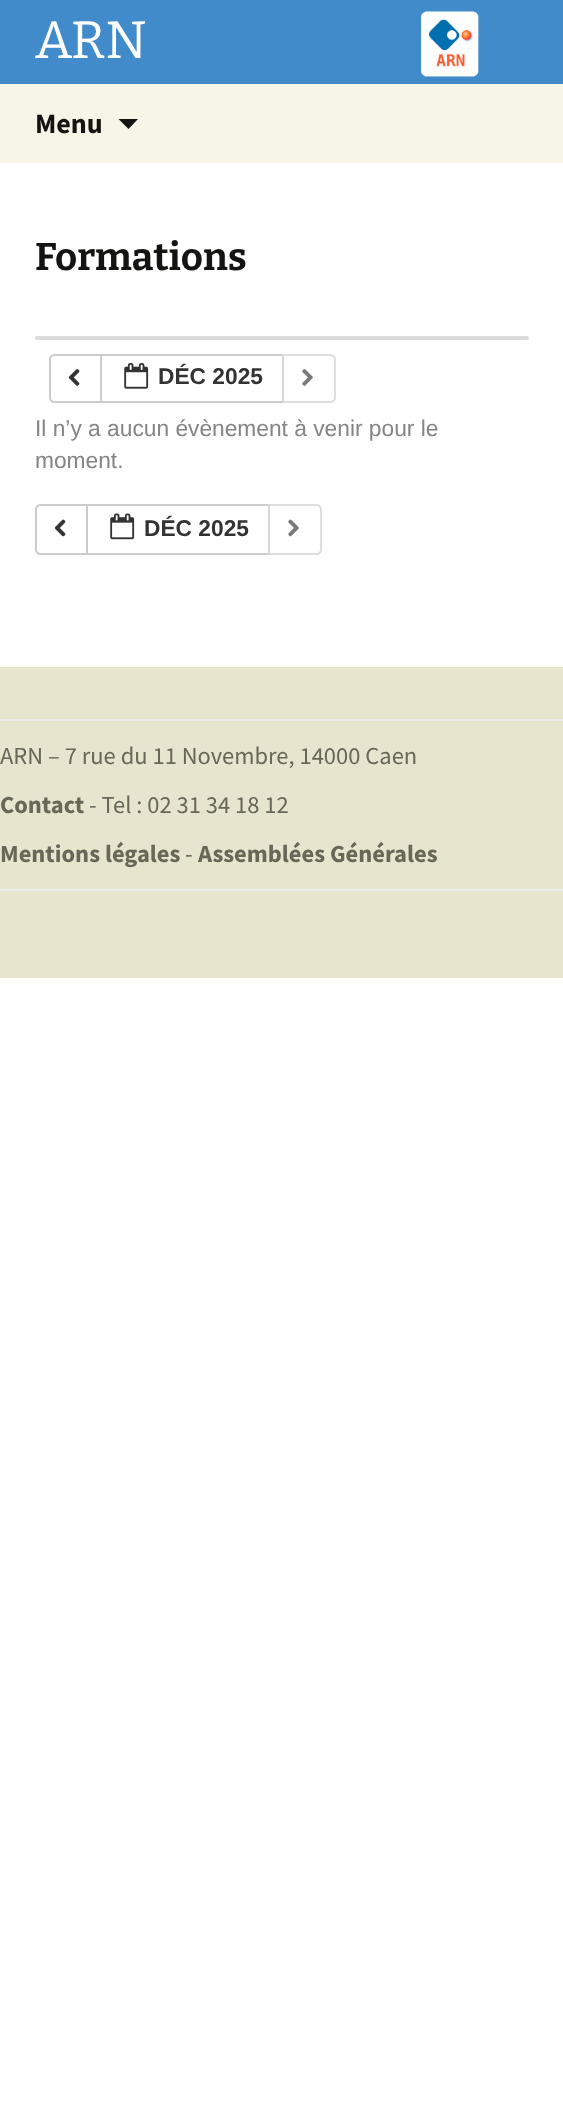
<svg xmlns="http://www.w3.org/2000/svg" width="563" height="2112">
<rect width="100%" height="100%" fill="#fff"/>
<image x="0" y="0" width="563" height="84" href="media/1.png"/>
<text x="35" y="58" style="font-family:Bitter;font-size:52.5px;fill:#fff">ARN</text>
<rect y="84" width="563" height="79" fill="#f7f5e7"/>
<text x="35" y="133" style="font-family:Source Sans Pro;font-size:28px;font-weight:bold;fill:#141412">Menu</text>
<path d="M118.5 119l10 10l9.5-10z" fill="#141412"/>
<text x="35" y="270" style="font-family:Bitter;font-size:38.5px;font-weight:bold;fill:#141412">Formations</text>
<rect x="35" y="336" width="494" height="4" rx="2" fill="#dbdbdb"/>
<path d="M54 355h47v47h-47c-2 0-4-2-4-4v-39c0-2 2-4 4-4z" fill="none" stroke="#ccc" stroke-width="2"/>
<image x="68" y="369" width="12" height="17" href="media/2.png"/>
<rect x="101" y="355" width="182" height="47" fill="none" stroke="#ccc" stroke-width="2"/>
<image x="124" y="363" width="25" height="26" href="media/3.png"/>
<text x="158" y="384" style="font-family:Liberation Sans;font-size:22.75px;font-weight:bold;fill:#333">DÉC 2025</text>
<path d="M282 354h49c3 0 5 2 5 5v39c0 3-2 5-5 5h-49z" fill="#ffffffa6"/>
<path d="M283 355h48c2 0 4 2 4 4v39c0 2-2 4-4 4h-48z" fill="none" stroke="#cccccca6" stroke-width="2"/>
<image x="302" y="369" width="11" height="17" href="media/4.png"/>
<text x="35" y="436" style="font-family:Liberation Sans;font-size:22.75px;fill:#858585">Il n’y a aucun évènement à venir pour le</text>
<text x="35" y="468" style="font-family:Liberation Sans;font-size:22.75px;fill:#858585">moment.</text>
<path d="M40 505h47v49h-47c-2 0-4-2-4-4v-41c0-2 2-4 4-4z" fill="none" stroke="#ccc" stroke-width="2"/>
<image x="54" y="519" width="12" height="18" href="media/5.png"/>
<rect x="87" y="505" width="182" height="49" fill="none" stroke="#ccc" stroke-width="2"/>
<image x="110" y="513" width="25" height="27" href="media/6.png"/>
<text x="144" y="536" style="font-family:Liberation Sans;font-size:22.75px;font-weight:bold;fill:#333">DÉC 2025</text>
<path d="M268 504h49c3 0 5 2 5 5v41c0 3-2 5-5 5h-49z" fill="#ffffffa6"/>
<path d="M269 505h48c2 0 4 2 4 4v41c0 2-2 4-4 4h-48z" fill="none" stroke="#cccccca6" stroke-width="2"/>
<image x="288" y="519" width="11" height="18" href="media/7.png"/>
<rect y="667" width="563" height="311" fill="#e8e5ce"/>
<rect y="889" width="563" height="2" fill="#ededed"/>
<rect y="719" width="563" height="2" fill="#ededed"/>
<text x="0" y="764" style="font-family:Source Sans Pro;font-size:24.5px;fill:#686758">ARN – 7 rue du 11 Novembre, 14000 Caen</text>
<text x="0" y="813" style="font-family:Source Sans Pro;font-size:24.5px;font-weight:bold;fill:#686758">Contact</text>
<text x="89" y="813" style="font-family:Source Sans Pro;font-size:24.5px;fill:#686758">- Tel : 02 31 34 18 12</text>
<text x="0" y="862" style="font-family:Source Sans Pro;font-size:24.5px;font-weight:bold;fill:#686758">Mentions légales</text>
<text x="185" y="862" style="font-family:Source Sans Pro;font-size:24.5px;fill:#686758">-</text>
<text x="198" y="862" style="font-family:Source Sans Pro;font-size:24.5px;font-weight:bold;fill:#686758">Assemblées Générales</text>
</svg>
